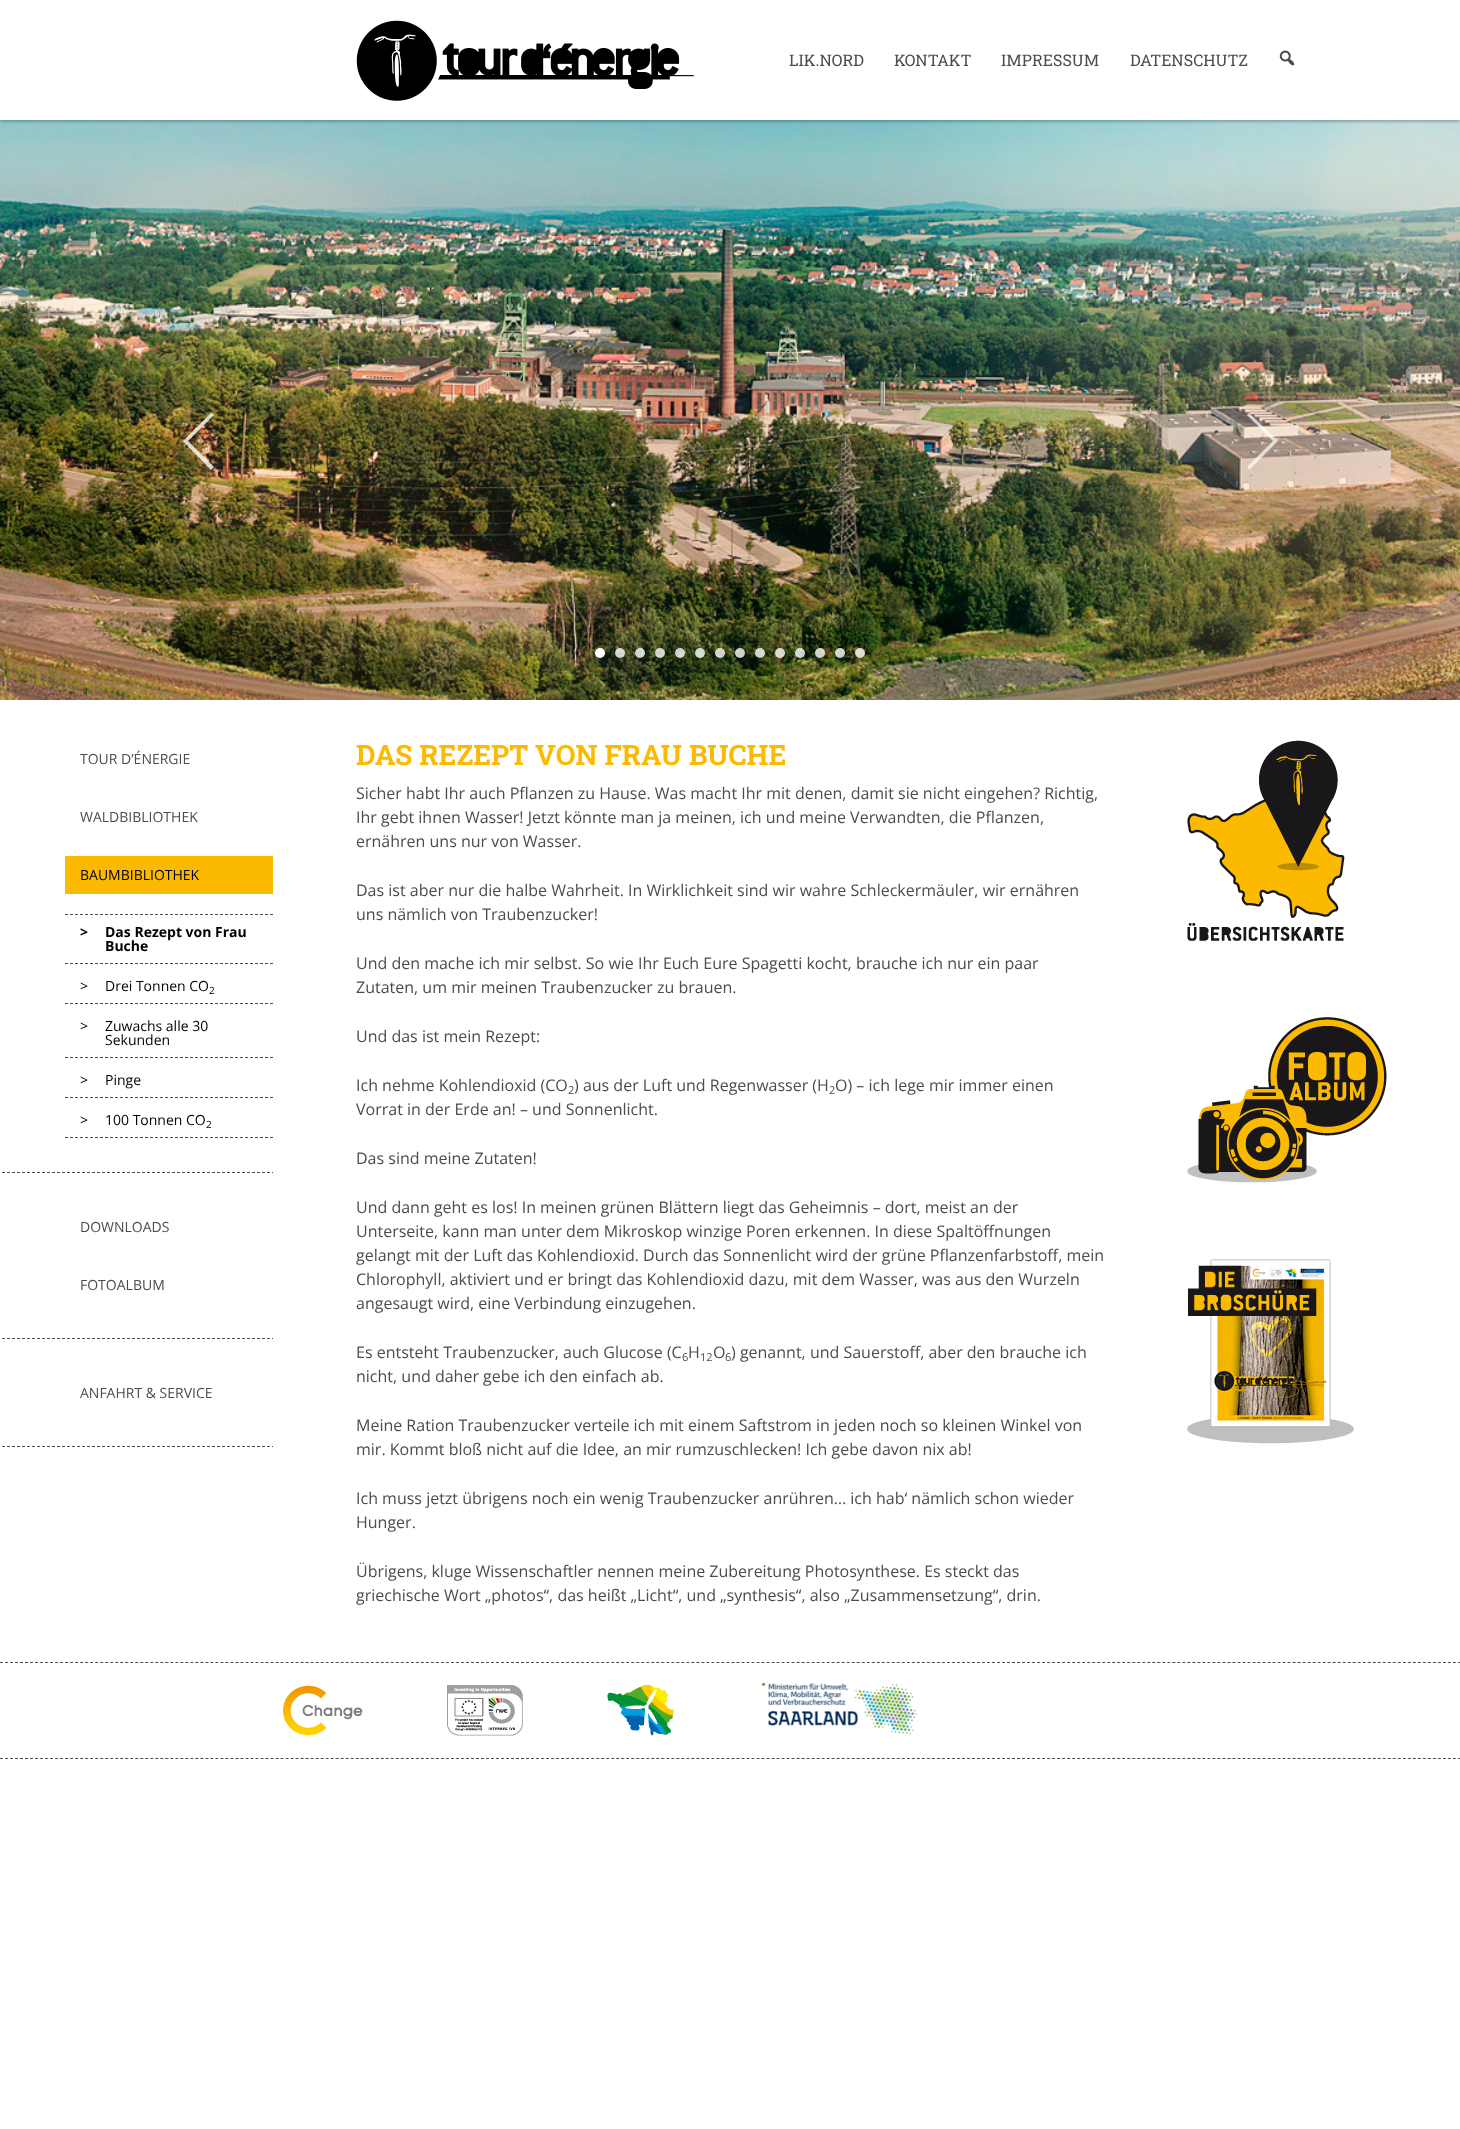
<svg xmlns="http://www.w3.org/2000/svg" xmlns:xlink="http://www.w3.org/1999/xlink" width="1460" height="2129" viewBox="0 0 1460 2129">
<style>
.cls-1{font:16px Roboto Slab;fill:#4c4c4c}
.cls-2{font:14px Open Sans;fill:#4c4c4c}
.cls-3{font:14px Open Sans;fill:#000000}
.cls-4{font:bold 14px Open Sans;fill:#000000}
.cls-5{font:10px Open Sans;fill:#000000}
.cls-6{font:bold 28px Roboto Slab;fill:#fbba00}
.cls-7{font:16px Open Sans;fill:#4c4c4c}
.cls-8{font:11px Open Sans;fill:#4c4c4c}
</style>
<defs>
<clipPath id="clip1"><rect x="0" y="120" width="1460" height="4"/></clipPath>
</defs>
<rect width="100%" height="100%" fill="#ffffff"/>
<image xlink:href="image2.png" x="0" y="120" width="1460" height="580"/>
<g clip-path="url(#clip1)">
<rect fill="#000000" fill-opacity="0.5" filter="blur(2.5px)" x="0" y="0" width="1460" height="120"/>
</g>
<image xlink:href="image0.png" x="356" y="20" width="338" height="81"/>
<image xlink:href="image1.png" x="1279" y="50" width="16" height="16"/>
<path fill="#ffffff" fill-opacity="0.8" d="M211 470L214 467L188 441L214 415L211 413L183 441Z"/>
<path fill="#ffffff" fill-opacity="0.7" d="M1249 470L1247 467L1273 441L1247 415L1249 413L1278 441Z"/>
<circle fill="#ffffff" cx="600" cy="653" r="5"/>
<circle fill="#ffffff" fill-opacity="0.8" cx="620" cy="653" r="5"/>
<circle fill="#ffffff" fill-opacity="0.8" cx="640" cy="653" r="5"/>
<circle fill="#ffffff" fill-opacity="0.8" cx="660" cy="653" r="5"/>
<circle fill="#ffffff" fill-opacity="0.8" cx="680" cy="653" r="5"/>
<circle fill="#ffffff" fill-opacity="0.8" cx="700" cy="653" r="5"/>
<circle fill="#ffffff" fill-opacity="0.8" cx="720" cy="653" r="5"/>
<circle fill="#ffffff" fill-opacity="0.8" cx="740" cy="653" r="5"/>
<circle fill="#ffffff" fill-opacity="0.8" cx="760" cy="653" r="5"/>
<circle fill="#ffffff" fill-opacity="0.8" cx="780" cy="653" r="5"/>
<circle fill="#ffffff" fill-opacity="0.8" cx="800" cy="653" r="5"/>
<circle fill="#ffffff" fill-opacity="0.8" cx="820" cy="653" r="5"/>
<circle fill="#ffffff" fill-opacity="0.8" cx="840" cy="653" r="5"/>
<circle fill="#ffffff" fill-opacity="0.8" cx="860" cy="653" r="5"/>
<rect fill="#fbba00" x="65" y="856" width="208" height="38"/>
<path fill="none" stroke="#4c4c4c" stroke-dasharray="3 2" d="M65 914.5H273"/>
<path fill="none" stroke="#4c4c4c" stroke-dasharray="3 2" d="M65 963.5H273"/>
<path fill="none" stroke="#4c4c4c" stroke-dasharray="3 2" d="M65 1003.5H273"/>
<path fill="none" stroke="#4c4c4c" stroke-dasharray="3 2" d="M65 1057.5H273"/>
<path fill="none" stroke="#4c4c4c" stroke-dasharray="3 2" d="M65 1097.5H273"/>
<path fill="none" stroke="#4c4c4c" stroke-dasharray="3 2" d="M65 1137.5H273"/>
<path fill="none" stroke="#4c4c4c" stroke-dasharray="3 2" d="M-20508 1172.5H273"/>
<path fill="none" stroke="#4c4c4c" stroke-dasharray="3 2" d="M-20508 1338.5H273"/>
<path fill="none" stroke="#4c4c4c" stroke-dasharray="3 2" d="M-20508 1446.5H273"/>
<image xlink:href="image3.png" x="1187" y="740" width="158" height="201"/>
<image xlink:href="image4.png" x="1187" y="1017" width="200" height="166"/>
<image xlink:href="image5.png" x="1187" y="1259" width="167" height="185"/>
<path fill="none" stroke="#4c4c4c" stroke-dasharray="3 2.01" d="M0 1662.5H1460"/>
<path fill="none" stroke="#4c4c4c" stroke-dasharray="3 2.01" d="M0 1758.5H1460"/>
<image xlink:href="image6.png" x="283" y="1685" width="80" height="51"/>
<image xlink:href="image7.png" x="447" y="1685" width="76" height="51"/>
<image xlink:href="image8.png" x="607" y="1685" width="67" height="51"/>
<image xlink:href="image9.png" x="761" y="1683" width="157" height="52"/>
<text class="cls-1" x="789" y="66">LIK.NORD</text>
<text class="cls-1" x="894" y="66">KONTAKT</text>
<text class="cls-1" x="1001" y="66">IMPRESSUM</text>
<text class="cls-1" x="1130" y="66">DATENSCHUTZ</text>
<text class="cls-2" x="80" y="764">TOUR D’ÉNERGIE</text>
<text class="cls-2" x="80" y="822">WALDBIBLIOTHEK</text>
<text class="cls-3" x="80" y="880">BAUMBIBLIOTHEK</text>
<text class="cls-4" x="80" y="937">&gt;</text>
<text class="cls-4"><tspan x="105" y="937">Das Rezept von Frau</tspan><tspan x="105" y="951">Buche</tspan></text>
<text class="cls-3" x="80" y="991">&gt;</text>
<text class="cls-3" x="105" y="991">Drei Tonnen CO</text>
<text class="cls-5" x="209" y="994">2</text>
<text class="cls-3" x="80" y="1031">&gt;</text>
<text class="cls-3"><tspan x="105" y="1031">Zuwachs alle 30</tspan><tspan x="105" y="1045">Sekunden</tspan></text>
<text class="cls-3" x="80" y="1085">&gt;</text>
<text class="cls-3" x="105" y="1085">Pinge</text>
<text class="cls-3" x="80" y="1125">&gt;</text>
<text class="cls-3" x="105" y="1125">100 Tonnen CO</text>
<text class="cls-5" x="206" y="1128">2</text>
<text class="cls-2" x="80" y="1232">DOWNLOADS</text>
<text class="cls-2" x="80" y="1290">FOTOALBUM</text>
<text class="cls-2" x="80" y="1398">ANFAHRT &amp; SERVICE</text>
<text class="cls-6" x="356" y="765">DAS REZEPT VON FRAU BUCHE</text>
<text class="cls-7"><tspan x="356" y="799">Sicher habt Ihr auch Pflanzen zu Hause. Was macht Ihr mit denen, damit sie nicht eingehen? Richtig,</tspan><tspan x="356" y="823">Ihr gebt ihnen Wasser! Jetzt könnte man ja meinen, ich und meine Verwandten, die Pflanzen,</tspan><tspan x="356" y="847">ernähren uns nur von Wasser.</tspan></text>
<text class="cls-7"><tspan x="356" y="896">Das ist aber nur die halbe Wahrheit. In Wirklichkeit sind wir wahre Schleckermäuler, wir ernähren</tspan><tspan x="356" y="920">uns nämlich von Traubenzucker!</tspan></text>
<text class="cls-7"><tspan x="356" y="969">Und den mache ich mir selbst. So wie Ihr Euch Eure Spagetti kocht, brauche ich nur ein paar</tspan><tspan x="356" y="993">Zutaten, um mir meinen Traubenzucker zu brauen.</tspan></text>
<text class="cls-7" x="356" y="1042">Und das ist mein Rezept:</text>
<text class="cls-7" x="356" y="1091">Ich nehme Kohlendioxid (CO</text>
<text class="cls-8" x="568" y="1094">2</text>
<text class="cls-7" x="574" y="1091">) aus der Luft und Regenwasser (H</text>
<text class="cls-8" x="829" y="1094">2</text>
<text class="cls-7" x="835" y="1091">O) – ich lege mir immer einen</text>
<text class="cls-7" x="356" y="1115">Vorrat in der Erde an! – und Sonnenlicht.</text>
<text class="cls-7" x="356" y="1164">Das sind meine Zutaten!</text>
<text class="cls-7"><tspan x="356" y="1213">Und dann geht es los! In meinen grünen Blättern liegt das Geheimnis – dort, meist an der</tspan><tspan x="356" y="1237">Unterseite, kann man unter dem Mikroskop winzige Poren erkennen. In diese Spaltöffnungen</tspan><tspan x="356" y="1261">gelangt mit der Luft das Kohlendioxid. Durch das Sonnenlicht wird der grüne Pflanzenfarbstoff, mein</tspan><tspan x="356" y="1285">Chlorophyll, aktiviert und er bringt das Kohlendioxid dazu, mit dem Wasser, was aus den Wurzeln</tspan><tspan x="356" y="1309">angesaugt wird, eine Verbindung einzugehen.</tspan></text>
<text class="cls-7" x="356" y="1358">Es entsteht Traubenzucker, auch Glucose (C</text>
<text class="cls-8" x="682" y="1361">6</text>
<text class="cls-7" x="688" y="1358">H</text>
<text class="cls-8" x="700" y="1361">12</text>
<text class="cls-7" x="713" y="1358">O</text>
<text class="cls-8" x="725" y="1361">6</text>
<text class="cls-7" x="731" y="1358">) genannt, und Sauerstoff, aber den brauche ich</text>
<text class="cls-7" x="356" y="1382">nicht, und daher gebe ich den einfach ab.</text>
<text class="cls-7"><tspan x="356" y="1431">Meine Ration Traubenzucker verteile ich mit einem Saftstrom in jeden noch so kleinen Winkel von</tspan><tspan x="356" y="1455">mir. Kommt bloß nicht auf die Idee, an mir rumzuschlecken! Ich gebe davon nix ab!</tspan></text>
<text class="cls-7"><tspan x="356" y="1504">Ich muss jetzt übrigens noch ein wenig Traubenzucker anrühren… ich hab‘ nämlich schon wieder</tspan><tspan x="356" y="1528">Hunger.</tspan></text>
<text class="cls-7"><tspan x="356" y="1577">Übrigens, kluge Wissenschaftler nennen meine Zubereitung Photosynthese. Es steckt das</tspan><tspan x="356" y="1601">griechische Wort „photos“, das heißt „Licht“, und „synthesis“, also „Zusammensetzung“, drin.</tspan></text>
</svg>
